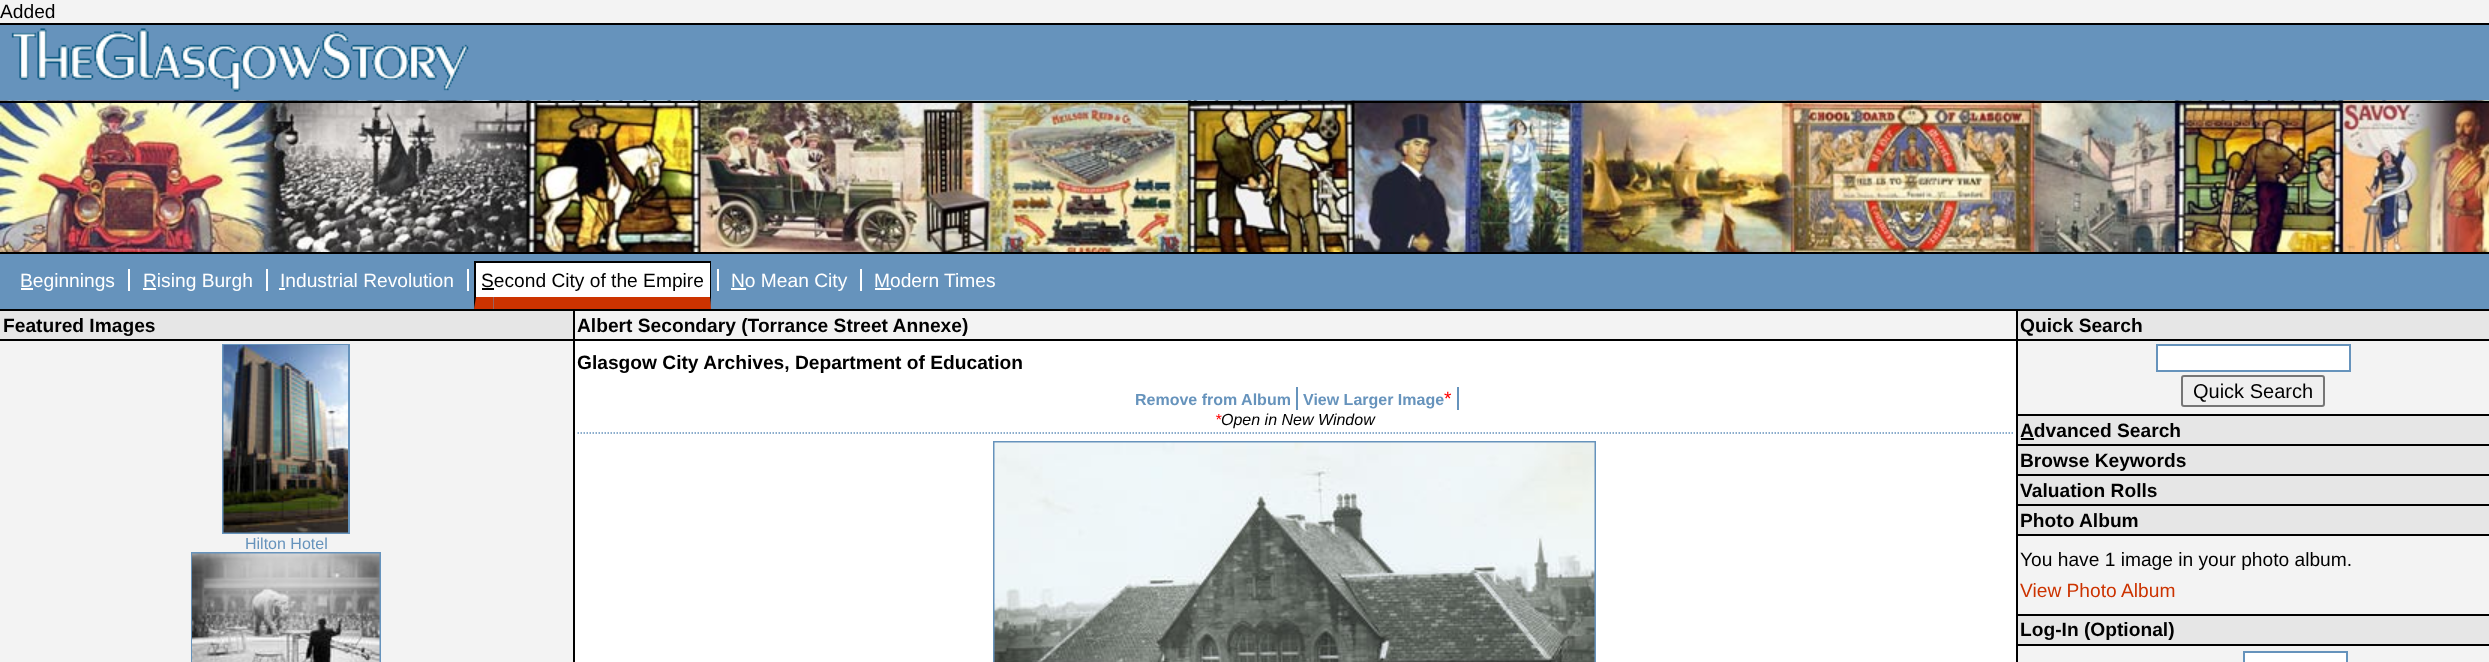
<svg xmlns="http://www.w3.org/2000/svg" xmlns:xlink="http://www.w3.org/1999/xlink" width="2489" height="662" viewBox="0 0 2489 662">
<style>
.cls-1{font:19.2px Liberation Sans;fill:#000000}
.cls-2{font:19.2px Liberation Sans;fill:#ffffff}
.cls-3{font:bold 19.2px Liberation Sans;fill:#000000}
.cls-4{font:16px Liberation Sans;fill:#6693bc}
.cls-5{font:bold 16px Liberation Sans;fill:#6693bc}
.cls-6{font:19.2px Liberation Sans;fill:#ff0000}
.cls-7{font:italic 16px Liberation Sans;fill:#ff0000}
.cls-8{font:italic 16px Liberation Sans;fill:#000000}
.cls-9{font:20px Liberation Sans;fill:#000000}
.cls-10{font:19.2px Liberation Sans;fill:#cc3300}
</style>
<rect width="100%" height="100%" fill="#f3f3f3"/>
<rect fill="#6693bc" x="0" y="25" width="2489" height="76"/>
<rect fill="#000000" x="0" y="23" width="2489" height="2"/>
<image xlink:href="image0.png" x="11" y="28" width="458" height="64"/>
<image xlink:href="image1.png" x="0" y="100" width="2489" height="152"/>
<rect fill="#000000" x="0" y="101" width="2489" height="2"/>
<rect fill="#000000" x="0" y="252" width="2489" height="2"/>
<rect fill="#6693bc" x="0" y="254" width="2489" height="55"/>
<rect fill="#000000" x="0" y="309" width="2489" height="2"/>
<rect fill="#ffffff" x="21" y="288" width="12" height="2"/>
<rect fill="#ffffff" x="128" y="269" width="2" height="22"/>
<rect fill="#ffffff" x="143" y="288" width="13" height="2"/>
<rect fill="#ffffff" x="266" y="269" width="2" height="22"/>
<rect fill="#ffffff" x="279" y="288" width="6" height="2"/>
<rect fill="#ffffff" x="467" y="269" width="2" height="22"/>
<rect fill="#ffffff" x="476" y="263" width="234" height="34"/>
<rect fill="#000000" x="474" y="261" width="237" height="2"/>
<path fill="#cc3300" d="M493.5 309H474L475.5 297H493.5Z"/>
<path fill="#000000" d="M474 309V261L476 262V297Z"/>
<path fill="#000000" d="M711 261V309L710 297V262Z"/>
<path fill="#cc3300" d="M711 309H494V297H710Z"/>
<rect fill="#000000" x="482" y="288" width="12" height="2"/>
<rect fill="#ffffff" x="717" y="269" width="2" height="22"/>
<rect fill="#ffffff" x="731" y="288" width="15" height="2"/>
<rect fill="#ffffff" x="860" y="269" width="2" height="22"/>
<rect fill="#ffffff" x="875" y="288" width="16" height="2"/>
<rect fill="#e6e6e6" x="0" y="311" width="573" height="28"/>
<rect fill="#000000" x="0" y="339" width="573" height="2"/>
<rect fill="none" stroke="#6693bc" stroke-width="2" x="223" y="345" width="126" height="188"/>
<image xlink:href="image2.png" x="223" y="345" width="125" height="188"/>
<rect fill="none" stroke="#6693bc" stroke-width="2" x="192" y="553" width="188" height="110"/>
<image xlink:href="image3.png" x="192" y="553" width="188" height="109"/>
<rect fill="#ffffff" x="575" y="341" width="1441" height="321"/>
<rect fill="#000000" x="2016" y="311" width="2" height="351"/>
<rect fill="#000000" x="573" y="311" width="2" height="351"/>
<rect fill="#000000" x="575" y="339" width="1441" height="2"/>
<path fill="none" stroke="#6693bc" stroke-width="1.5" stroke-dasharray="1.5 1.5" d="M577.5 433H2013"/>
<rect fill="#6693bc" x="1296" y="387" width="2" height="23"/>
<rect fill="#6693bc" x="1457" y="387" width="2" height="23"/>
<rect fill="none" stroke="#6693bc" stroke-width="2" x="994" y="442" width="601" height="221"/>
<image xlink:href="image4.png" x="994" y="442" width="601" height="220"/>
<rect fill="#e6e6e6" x="2018" y="311" width="471" height="28"/>
<rect fill="#000000" x="2018" y="339" width="471" height="2"/>
<rect fill="#ffffff" stroke="#6693bc" stroke-width="2" x="2157" y="345" width="193" height="26"/>
<rect fill="#efefef" stroke="#767676" stroke-width="2" x="2182" y="376" width="142" height="30" rx="2"/>
<rect fill="#e6e6e6" x="2018" y="416" width="471" height="28"/>
<rect fill="#000000" x="2018" y="414" width="471" height="2"/>
<rect fill="#000000" x="2021" y="438" width="13" height="2"/>
<rect fill="#e6e6e6" x="2018" y="446" width="471" height="28"/>
<rect fill="#000000" x="2018" y="444" width="471" height="2"/>
<rect fill="#e6e6e6" x="2018" y="476" width="471" height="28"/>
<rect fill="#000000" x="2018" y="474" width="471" height="2"/>
<rect fill="#e6e6e6" x="2018" y="506" width="471" height="28"/>
<rect fill="#000000" x="2018" y="504" width="471" height="2"/>
<rect fill="#000000" x="2018" y="534" width="471" height="2"/>
<rect fill="#e6e6e6" x="2018" y="616" width="471" height="28"/>
<rect fill="#000000" x="2018" y="614" width="471" height="2"/>
<rect fill="#000000" x="2018" y="644" width="471" height="2"/>
<rect fill="#ffffff" stroke="#6693bc" stroke-width="2" x="2244" y="652" width="103" height="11"/>
<text class="cls-1" x="0" y="18">Added</text>
<text class="cls-2" x="20" y="287">Beginnings</text>
<text class="cls-2" x="143" y="287">Rising Burgh</text>
<text class="cls-2" x="280" y="287">Industrial Revolution</text>
<text class="cls-1" x="481" y="287">Second City of the Empire</text>
<text class="cls-2" x="731" y="287">No Mean City</text>
<text class="cls-2" x="874" y="287">Modern Times</text>
<text class="cls-3" x="3" y="332">Featured Images</text>
<text class="cls-4" x="245" y="549">Hilton Hotel</text>
<text class="cls-3"><tspan x="577" y="332">Albert Secondary (Torrance Street Annexe)</tspan><tspan x="577" y="369">Glasgow City Archives, Department of Education</tspan></text>
<text class="cls-5" x="1135" y="405">Remove from Album</text>
<text class="cls-5" x="1303" y="405">View Larger Image</text>
<text class="cls-6" x="1444" y="405">*</text>
<text class="cls-7" x="1215" y="425">*</text>
<text class="cls-8" x="1221" y="425">Open in New Window</text>
<text class="cls-3" x="2020" y="332">Quick Search</text>
<text class="cls-9" x="2193" y="398">Quick Search</text>
<text class="cls-3"><tspan x="2020" y="437">Advanced Search</tspan><tspan x="2020" y="467">Browse Keywords</tspan><tspan x="2020" y="497">Valuation Rolls</tspan><tspan x="2020" y="527">Photo Album</tspan></text>
<text class="cls-1" x="2020" y="566">You have 1 image in your photo album.</text>
<text class="cls-10" x="2020" y="597">View Photo Album</text>
<text class="cls-3" x="2020" y="636">Log-In (Optional)</text>
</svg>
